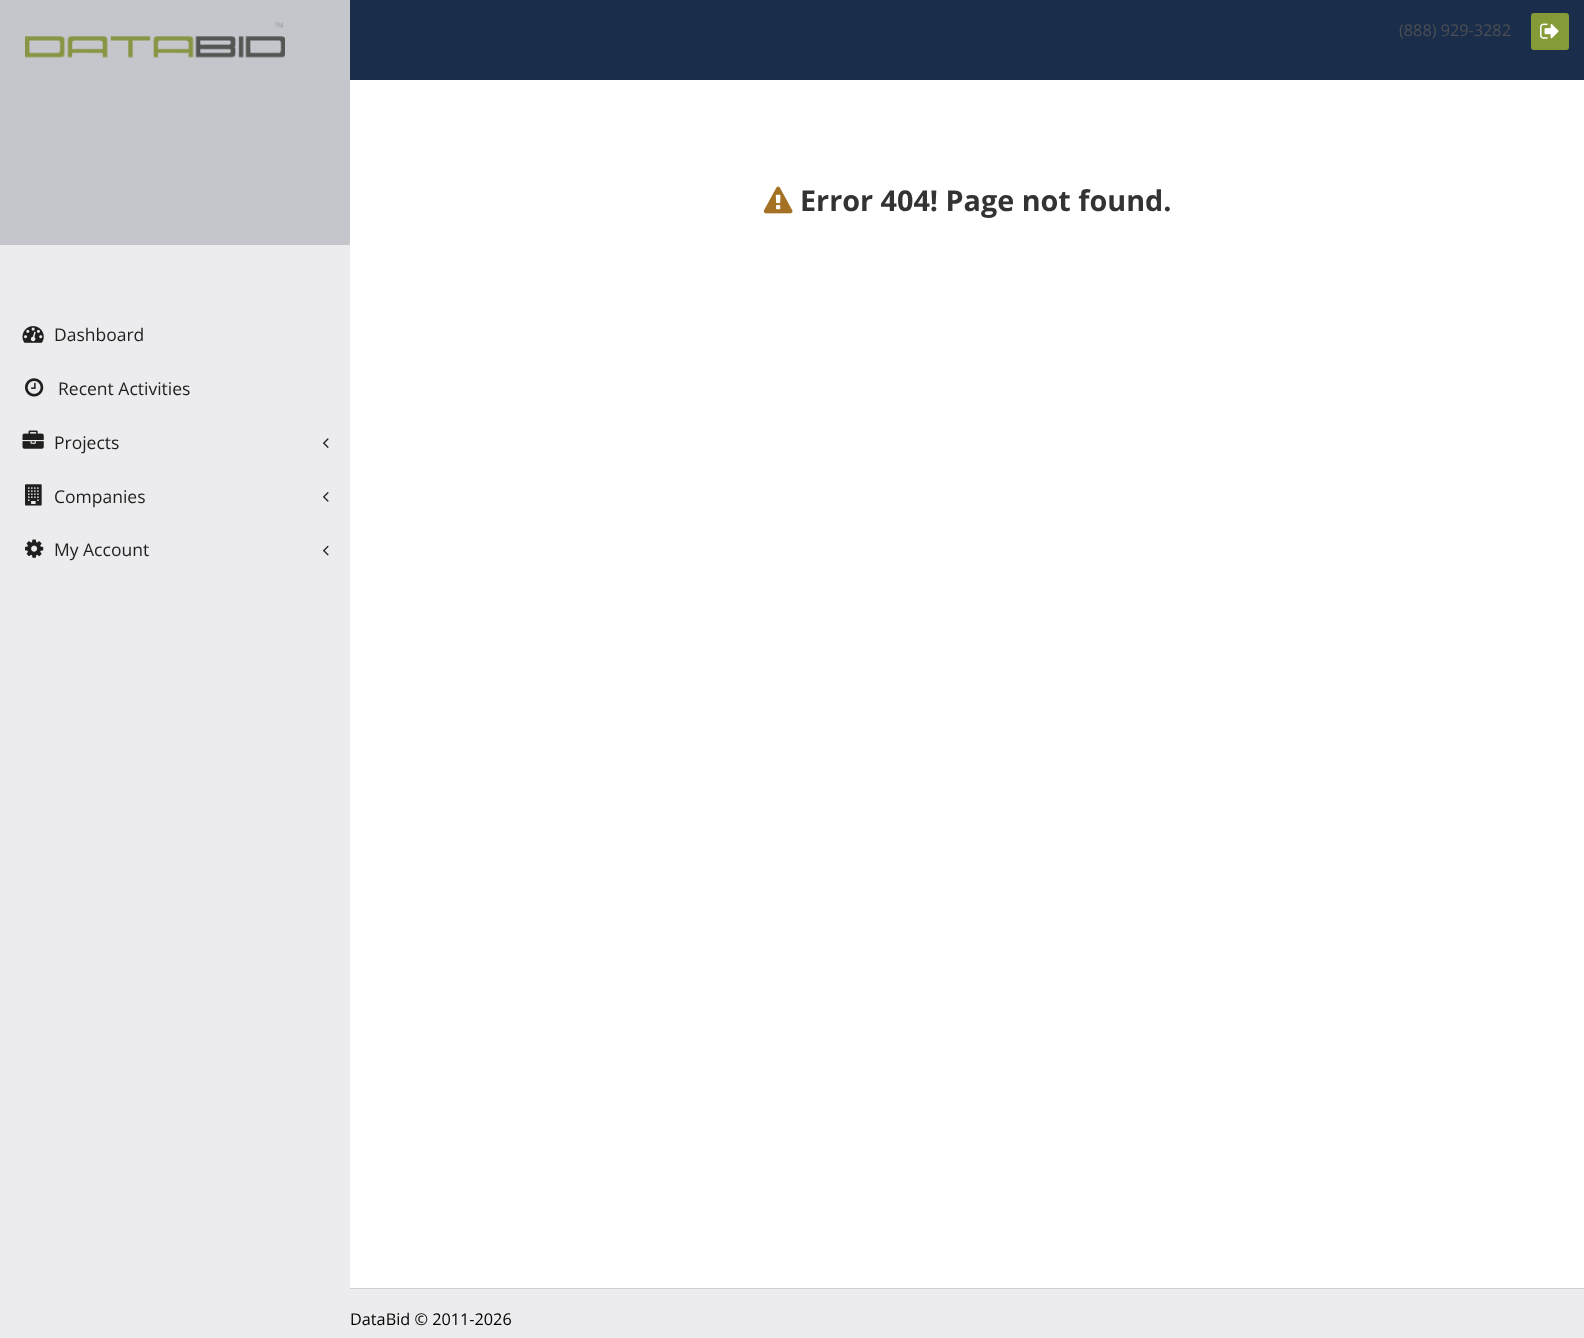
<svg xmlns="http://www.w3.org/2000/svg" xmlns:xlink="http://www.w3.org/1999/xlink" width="1584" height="1338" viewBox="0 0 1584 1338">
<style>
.cls-1{font:16.25px Open Sans;fill:#4c4f53}
.cls-2{font:bold 28.75px Open Sans;fill:#333333}
.cls-3{font:17.5px Open Sans;fill:#1f1f1f}
.cls-4{font:16.25px Open Sans;fill:#000000}
</style>
<rect width="100%" height="100%" fill="#ffffff"/>
<rect fill="#1a2d4a" x="350" y="0" width="1234" height="80"/>
<rect fill="#c5c6cb" x="0" y="0" width="350" height="245"/>
<image xlink:href="image0.png" x="25" y="22" width="260" height="36"/>
<rect fill="#859b37" stroke="#859b37" x="1531.5" y="13.5" width="37" height="36" rx="2"/>
<image xlink:href="image1.png" x="1540" y="23" width="19" height="16"/>
<image xlink:href="image2.png" x="763" y="186" width="30" height="28"/>
<rect fill="#ececee" x="0" y="245" width="350" height="1093"/>
<image xlink:href="image3.png" x="22" y="326" width="22" height="17"/>
<image xlink:href="image4.png" x="25" y="378" width="19" height="19"/>
<image xlink:href="image5.png" x="22" y="430" width="22" height="19"/>
<image xlink:href="image6.png" x="323" y="438" width="6" height="10"/>
<image xlink:href="image7.png" x="25" y="484" width="17" height="22"/>
<image xlink:href="image8.png" x="323" y="492" width="6" height="10"/>
<image xlink:href="image9.png" x="25" y="539" width="19" height="19"/>
<image xlink:href="image10.png" x="323" y="545" width="6" height="11"/>
<rect fill="#ececee" x="350" y="1289" width="1234" height="49"/>
<rect fill="#cecece" x="350" y="1288" width="1234" height="1"/>
<text class="cls-1" x="1399" y="36">(888) 929-3282</text>
<text class="cls-2" x="800" y="211">Error 404! Page not found.</text>
<text class="cls-3" x="54" y="341">Dashboard</text>
<text class="cls-3" x="58" y="395">Recent Activities</text>
<text class="cls-3" x="54" y="449">Projects</text>
<text class="cls-3" x="54" y="503">Companies</text>
<text class="cls-3" x="54" y="556">My Account</text>
<text class="cls-4" x="350" y="1325">DataBid © 2011-2026</text>
</svg>
